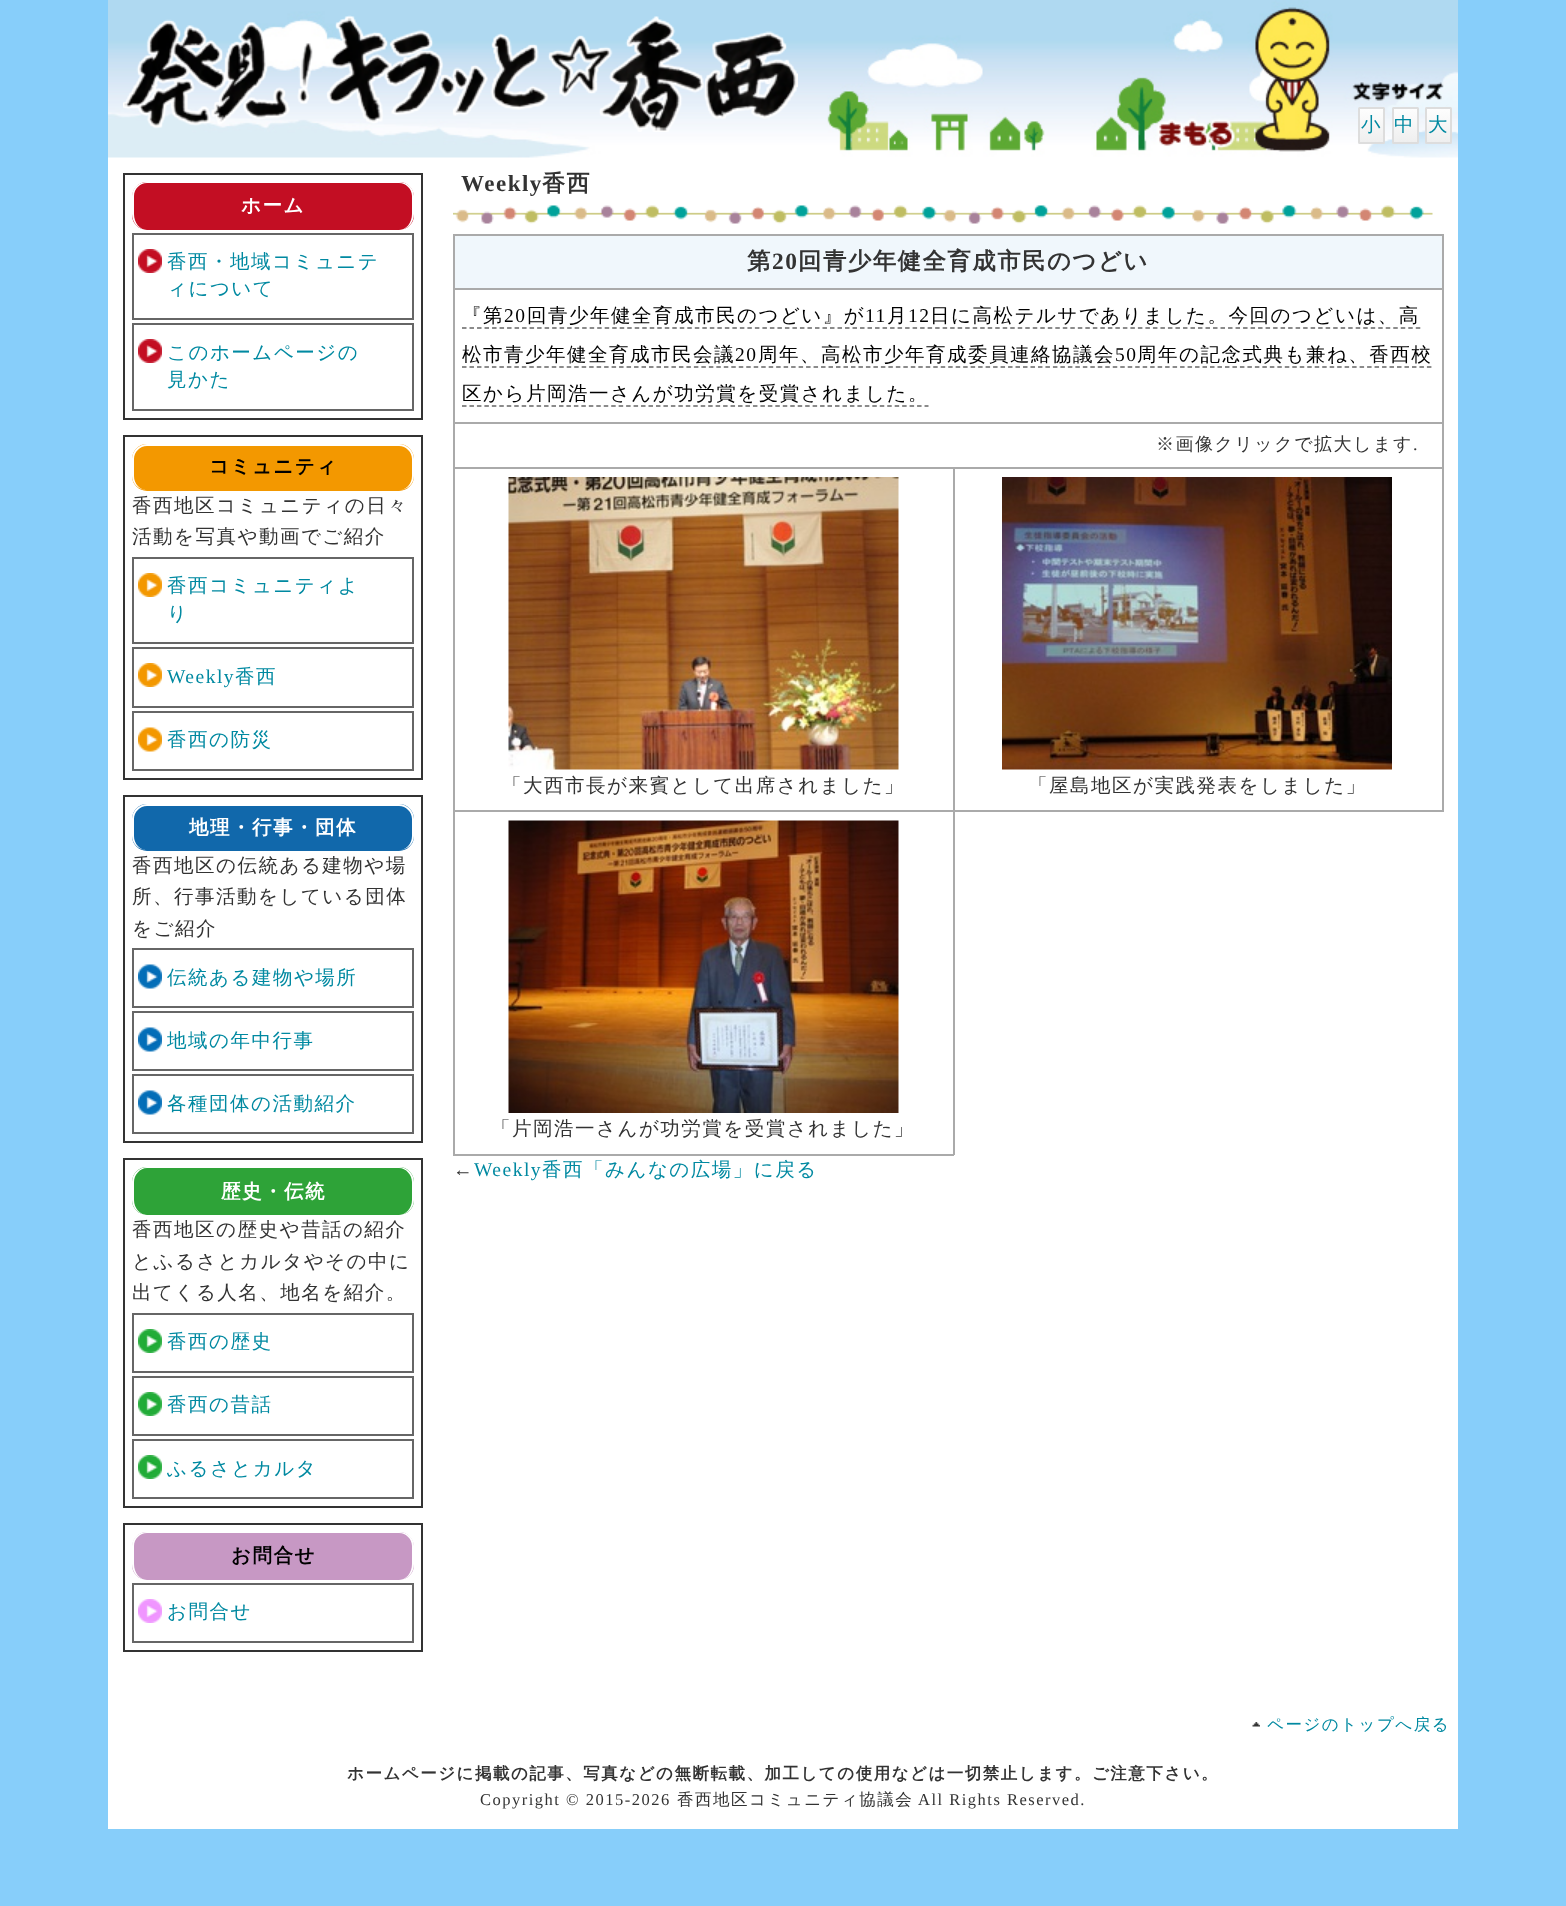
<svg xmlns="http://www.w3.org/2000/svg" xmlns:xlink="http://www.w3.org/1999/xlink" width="1566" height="1906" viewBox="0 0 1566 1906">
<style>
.cls-1{font:500 19.5px WenQuanYi Zen Hei;letter-spacing:1.5px;fill:#0089a1}
.cls-2{font:bold 19.5px WenQuanYi Zen Hei;letter-spacing:1.5px;fill:#ffffff}
.cls-3{font:bold 19.5px WenQuanYi Zen Hei;letter-spacing:1.5px;fill:#000000}
.cls-4{font:500 19.5px WenQuanYi Zen Hei;letter-spacing:1.5px;fill:#333333}
.cls-5{font:19.5px Liberation Serif;letter-spacing:1.5px;fill:#0089a1}
.cls-6{font:bold 23px Liberation Serif;letter-spacing:1.5px;fill:#333333}
.cls-7{font:bold 23px WenQuanYi Zen Hei;letter-spacing:1.5px;fill:#333333}
.cls-8{font:bold 23.4px WenQuanYi Zen Hei;letter-spacing:1.5px;fill:#333333}
.cls-9{font:bold 23.4px Liberation Serif;letter-spacing:1.5px;fill:#333333}
.cls-10{font:500 19.5px WenQuanYi Zen Hei;letter-spacing:1.5px;fill:#000000}
.cls-11{font:19.5px Liberation Serif;letter-spacing:1.5px;fill:#000000}
.cls-12{font:500 18px WenQuanYi Zen Hei;letter-spacing:1.5px;fill:#333333}
.cls-13{font:18px Liberation Serif;letter-spacing:1.5px;fill:#333333}
.cls-14{font:19.5px Liberation Serif;letter-spacing:1.5px;fill:#333333}
.cls-15{font:500 16.5px WenQuanYi Zen Hei;letter-spacing:1.5px;fill:#0089a1}
.cls-16{font:bold 16.5px WenQuanYi Zen Hei;letter-spacing:1.5px;fill:#333333}
.cls-17{font:16.5px Liberation Serif;letter-spacing:1.5px;fill:#333333}
.cls-18{font:500 16.5px WenQuanYi Zen Hei;letter-spacing:1.5px;fill:#333333}
</style>
<defs>
<linearGradient id="g1" gradientUnits="userSpaceOnUse" x1="1371" y1="108" x2="1371" y2="143"><stop offset="0" stop-color="#fefefe"/><stop offset="1" stop-color="#eeeeee"/></linearGradient>
<linearGradient id="g2" gradientUnits="userSpaceOnUse" x1="1406" y1="108" x2="1406" y2="143"><stop offset="0" stop-color="#fefefe"/><stop offset="1" stop-color="#eeeeee"/></linearGradient>
<linearGradient id="g3" gradientUnits="userSpaceOnUse" x1="1439" y1="108" x2="1439" y2="143"><stop offset="0" stop-color="#fefefe"/><stop offset="1" stop-color="#eeeeee"/></linearGradient>
</defs>
<rect width="100%" height="100%" fill="#87cefa"/>
<rect fill="#ffffff" x="108" y="157" width="1350" height="1672"/>
<image xlink:href="image0.png" x="108" y="0" width="1350" height="158"/>
<image xlink:href="image1.png" x="123" y="15" width="675" height="117"/>
<rect fill="url(#g1)" x="1358" y="108" width="27" height="35"/>
<rect fill="none" stroke="#dddddd" stroke-width="2" x="1359" y="108" width="25" height="35" rx="0.5"/>
<rect fill="url(#g2)" x="1392" y="108" width="27" height="35"/>
<rect fill="none" stroke="#dddddd" stroke-width="2" x="1393" y="108" width="25" height="35" rx="0.5"/>
<rect fill="url(#g3)" x="1425" y="108" width="27" height="35"/>
<rect fill="none" stroke="#dddddd" stroke-width="2" x="1426" y="108" width="25" height="35" rx="0.5"/>
<rect fill="none" stroke="#333333" stroke-width="2" x="124" y="174" width="298" height="245"/>
<rect fill="#c30e23" x="132" y="182" width="282" height="48" rx="15"/>
<path fill="#ffffff" fill-rule="evenodd" d="M147 182H399C407 182 414 188 414 196V214C414 223 407 230 399 230H147C139 230 132 223 132 214V196C132 188 139 182 147 182ZM147 183H399C406 183 412 189 412 196V214C412 223 406 230 399 230H147C140 230 134 223 134 214V196C134 189 140 183 147 183Z"/>
<image xlink:href="image2.png" x="138" y="249" width="24" height="24"/>
<rect fill="none" stroke="#666666" stroke-width="2" x="133" y="234" width="280" height="85"/>
<image xlink:href="image2.png" x="138" y="339" width="24" height="24"/>
<rect fill="none" stroke="#666666" stroke-width="2" x="133" y="324" width="280" height="86"/>
<rect fill="none" stroke="#333333" stroke-width="2" x="124" y="436" width="298" height="343"/>
<rect fill="#f39800" x="132" y="444" width="282" height="47" rx="15"/>
<path fill="#ffffff" fill-rule="evenodd" d="M147 444H399C407 444 414 451 414 459V476C414 484 407 490 399 490H147C139 490 132 484 132 476V459C132 451 139 444 147 444ZM147 446H399C406 446 412 452 412 459V476C412 484 406 490 399 490H147C140 490 134 484 134 476V459C134 452 140 446 147 446Z"/>
<image xlink:href="image3.png" x="138" y="573" width="24" height="24"/>
<rect fill="none" stroke="#666666" stroke-width="2" x="133" y="558" width="280" height="85"/>
<image xlink:href="image3.png" x="138" y="663" width="24" height="24"/>
<rect fill="none" stroke="#666666" stroke-width="2" x="133" y="648" width="280" height="59"/>
<image xlink:href="image4.png" x="138" y="727" width="24" height="25"/>
<rect fill="none" stroke="#666666" stroke-width="2" x="133" y="712" width="280" height="58"/>
<rect fill="none" stroke="#333333" stroke-width="2" x="124" y="796" width="298" height="346"/>
<rect fill="#1168ab" x="132" y="804" width="282" height="47" rx="15"/>
<path fill="#ffffff" fill-rule="evenodd" d="M147 804H399C407 804 414 811 414 819V836C414 844 407 850 399 850H147C139 850 132 844 132 836V819C132 811 139 804 147 804ZM147 806H399C406 806 412 812 412 819V836C412 844 406 850 399 850H147C140 850 134 844 134 836V819C134 812 140 806 147 806Z"/>
<image xlink:href="image5.png" x="138" y="964" width="24" height="25"/>
<rect fill="none" stroke="#666666" stroke-width="2" x="133" y="949" width="280" height="58"/>
<image xlink:href="image5.png" x="138" y="1027" width="24" height="25"/>
<rect fill="none" stroke="#666666" stroke-width="2" x="133" y="1012" width="280" height="58"/>
<image xlink:href="image5.png" x="138" y="1090" width="24" height="25"/>
<rect fill="none" stroke="#666666" stroke-width="2" x="133" y="1075" width="280" height="58"/>
<rect fill="none" stroke="#333333" stroke-width="2" x="124" y="1159" width="298" height="348"/>
<rect fill="#2ea338" x="132" y="1167" width="282" height="48" rx="15"/>
<path fill="#ffffff" fill-rule="evenodd" d="M147 1167H399C407 1167 414 1174 414 1182V1200C414 1208 407 1215 399 1215H147C139 1215 132 1208 132 1200V1182C132 1174 139 1167 147 1167ZM147 1168H399C406 1168 412 1175 412 1182V1200C412 1208 406 1215 399 1215H147C140 1215 134 1208 134 1200V1182C134 1175 140 1168 147 1168Z"/>
<image xlink:href="image6.png" x="138" y="1329" width="24" height="24"/>
<rect fill="none" stroke="#666666" stroke-width="2" x="133" y="1314" width="280" height="58"/>
<image xlink:href="image6.png" x="138" y="1392" width="24" height="24"/>
<rect fill="none" stroke="#666666" stroke-width="2" x="133" y="1377" width="280" height="58"/>
<image xlink:href="image6.png" x="138" y="1455" width="24" height="24"/>
<rect fill="none" stroke="#666666" stroke-width="2" x="133" y="1440" width="280" height="58"/>
<rect fill="none" stroke="#333333" stroke-width="2" x="124" y="1524" width="298" height="127"/>
<rect fill="#c798c4" x="132" y="1532" width="282" height="48" rx="15"/>
<path fill="#ffffff" fill-rule="evenodd" d="M147 1532H399C407 1532 414 1538 414 1546V1564C414 1573 407 1580 399 1580H147C139 1580 132 1573 132 1564V1546C132 1538 139 1532 147 1532ZM147 1533H399C406 1533 412 1539 412 1546V1564C412 1573 406 1580 399 1580H147C140 1580 134 1573 134 1564V1546C134 1539 140 1533 147 1533Z"/>
<image xlink:href="image7.png" x="138" y="1599" width="24" height="24"/>
<rect fill="none" stroke="#666666" stroke-width="2" x="133" y="1584" width="280" height="58"/>
<image xlink:href="image8.png" x="453" y="205" width="980" height="19"/>
<rect fill="#f0f7fc" x="455" y="236" width="987" height="52"/>
<rect fill="#aaaaaa" x="453" y="234" width="990" height="2"/>
<rect fill="#aaaaaa" x="453" y="288" width="990" height="2"/>
<rect fill="#aaaaaa" x="453" y="422" width="990" height="2"/>
<rect fill="#aaaaaa" x="953" y="467" width="490" height="2"/>
<rect fill="#aaaaaa" x="1442" y="467" width="2" height="345"/>
<rect fill="#aaaaaa" x="1442" y="422" width="2" height="46"/>
<rect fill="#aaaaaa" x="1442" y="288" width="2" height="135"/>
<rect fill="#aaaaaa" x="1442" y="234" width="2" height="56"/>
<rect fill="#aaaaaa" x="453" y="810" width="501" height="2"/>
<rect fill="#aaaaaa" x="953" y="810" width="2" height="345"/>
<rect fill="#aaaaaa" x="953" y="810" width="490" height="2"/>
<rect fill="#aaaaaa" x="953" y="467" width="2" height="345"/>
<rect fill="#aaaaaa" x="453" y="467" width="501" height="2"/>
<rect fill="#aaaaaa" x="453" y="1154" width="501" height="2"/>
<rect fill="#aaaaaa" x="453" y="810" width="2" height="345"/>
<rect fill="#aaaaaa" x="453" y="467" width="2" height="345"/>
<rect fill="#aaaaaa" x="453" y="422" width="2" height="46"/>
<rect fill="#aaaaaa" x="453" y="288" width="2" height="135"/>
<rect fill="#aaaaaa" x="453" y="234" width="2" height="56"/>
<path fill="none" stroke="#666666" stroke-width="1.5" stroke-dasharray="4.5 3.01" d="M462 328H1420.5"/>
<path fill="none" stroke="#666666" stroke-width="1.5" stroke-dasharray="4.5 2.98" d="M462 367H1432.5"/>
<path fill="none" stroke="#666666" stroke-width="1.5" stroke-dasharray="4.5 2.96" d="M462 406H928.5"/>
<image xlink:href="image9.png" x="508" y="477" width="391" height="293"/>
<image xlink:href="image10.png" x="1002" y="477" width="390" height="293"/>
<image xlink:href="image11.png" x="508" y="820" width="391" height="293"/>
<image xlink:href="image12.png" x="1252" y="1722" width="8" height="5"/>
<text class="cls-1" x="1361" y="131">小</text>
<text class="cls-1" x="1394" y="131">中</text>
<text class="cls-1" x="1428" y="131">大</text>
<text class="cls-2" x="241" y="212">ホーム</text>
<text class="cls-1"><tspan x="167" y="268">香西・地域コミュニテ</tspan><tspan x="167" y="295">ィについて</tspan></text>
<text class="cls-1"><tspan x="167" y="359">このホームページの</tspan><tspan x="167" y="386">見かた</tspan></text>
<text class="cls-3" x="209" y="473">コミュニティ</text>
<text class="cls-4"><tspan x="132" y="512">香西地区コミュニティの日々</tspan><tspan x="132" y="543">活動を写真や動画でご紹介</tspan></text>
<text class="cls-1"><tspan x="167" y="592">香西コミュニティよ</tspan><tspan x="167" y="620">り</tspan></text>
<text class="cls-5" x="167" y="683">Weekly</text>
<text class="cls-1" x="235" y="683">香西</text>
<text class="cls-1" x="167" y="746">香西の防災</text>
<text class="cls-2" x="189" y="834">地理・行事・団体</text>
<text class="cls-4"><tspan x="132" y="872">香西地区の伝統ある建物や場</tspan><tspan x="132" y="903">所、行事活動をしている団体</tspan><tspan x="132" y="935">をご紹介</tspan></text>
<text class="cls-1" x="167" y="984">伝統ある建物や場所</text>
<text class="cls-1" x="167" y="1047">地域の年中行事</text>
<text class="cls-1" x="167" y="1110">各種団体の活動紹介</text>
<text class="cls-2" x="221" y="1198">歴史・伝統</text>
<text class="cls-4"><tspan x="132" y="1236">香西地区の歴史や昔話の紹介</tspan><tspan x="132" y="1268">とふるさとカルタやその中に</tspan><tspan x="132" y="1299">出てくる人名、地名を紹介。</tspan></text>
<text class="cls-1" x="167" y="1348">香西の歴史</text>
<text class="cls-1" x="167" y="1411">香西の昔話</text>
<text class="cls-1" x="167" y="1475">ふるさとカルタ</text>
<text class="cls-3" x="231" y="1562">お問合せ</text>
<text class="cls-1" x="167" y="1618">お問合せ</text>
<text class="cls-6" x="461" y="191">Weekly</text>
<text class="cls-7" x="542" y="191">香西</text>
<text class="cls-8" x="747" y="269">第</text>
<text class="cls-9" x="772" y="269">20</text>
<text class="cls-8" x="798" y="269">回青少年健全育成市民のつどい</text>
<text class="cls-10" x="462" y="322">『第</text>
<text class="cls-11" x="504" y="322">20</text>
<text class="cls-10" x="527" y="322">回青少年健全育成市民のつどい』が</text>
<text class="cls-11" x="865" y="322">11</text>
<text class="cls-10" x="887" y="322">月</text>
<text class="cls-11" x="908" y="322">12</text>
<text class="cls-10" x="930" y="322">日に高松テルサでありました。今回のつどいは、高</text>
<text class="cls-10" x="462" y="361">松市青少年健全育成市民会議</text>
<text class="cls-11" x="735" y="361">20</text>
<text class="cls-10" x="758" y="361">周年、高松市少年育成委員連絡協議会</text>
<text class="cls-11" x="1115" y="361">50</text>
<text class="cls-10" x="1137" y="361">周年の記念式典も兼ね、香西校</text>
<text class="cls-10" x="462" y="400">区から片岡浩一さんが功労賞を受賞されました。</text>
<text class="cls-12" x="1156" y="450">※画像クリックで拡大します</text>
<text class="cls-13" x="1413" y="450">.</text>
<text class="cls-4" x="502" y="792">「大西市長が来賓として出席されました」</text>
<text class="cls-4" x="1028" y="792">「屋島地区が実践発表をしました」</text>
<text class="cls-4" x="491" y="1135">「片岡浩一さんが功労賞を受賞されました」</text>
<text class="cls-14" x="453" y="1176">←</text>
<text class="cls-5" x="474" y="1176">Weekly</text>
<text class="cls-1" x="542" y="1176">香西「みんなの広場」に戻る</text>
<text class="cls-15" x="1267" y="1730">ページのトップへ戻る</text>
<text class="cls-16" x="347" y="1779">ホームページに掲載の記事、写真などの無断転載、加工しての使用などは一切禁止します。ご注意下さい。</text>
<text class="cls-17" x="480" y="1805">Copyright © 2015-2026</text>
<text class="cls-18" x="677" y="1805">香西地区コミュニティ協議会</text>
<text class="cls-17" x="918" y="1805">All Rights Reserved.</text>
</svg>
